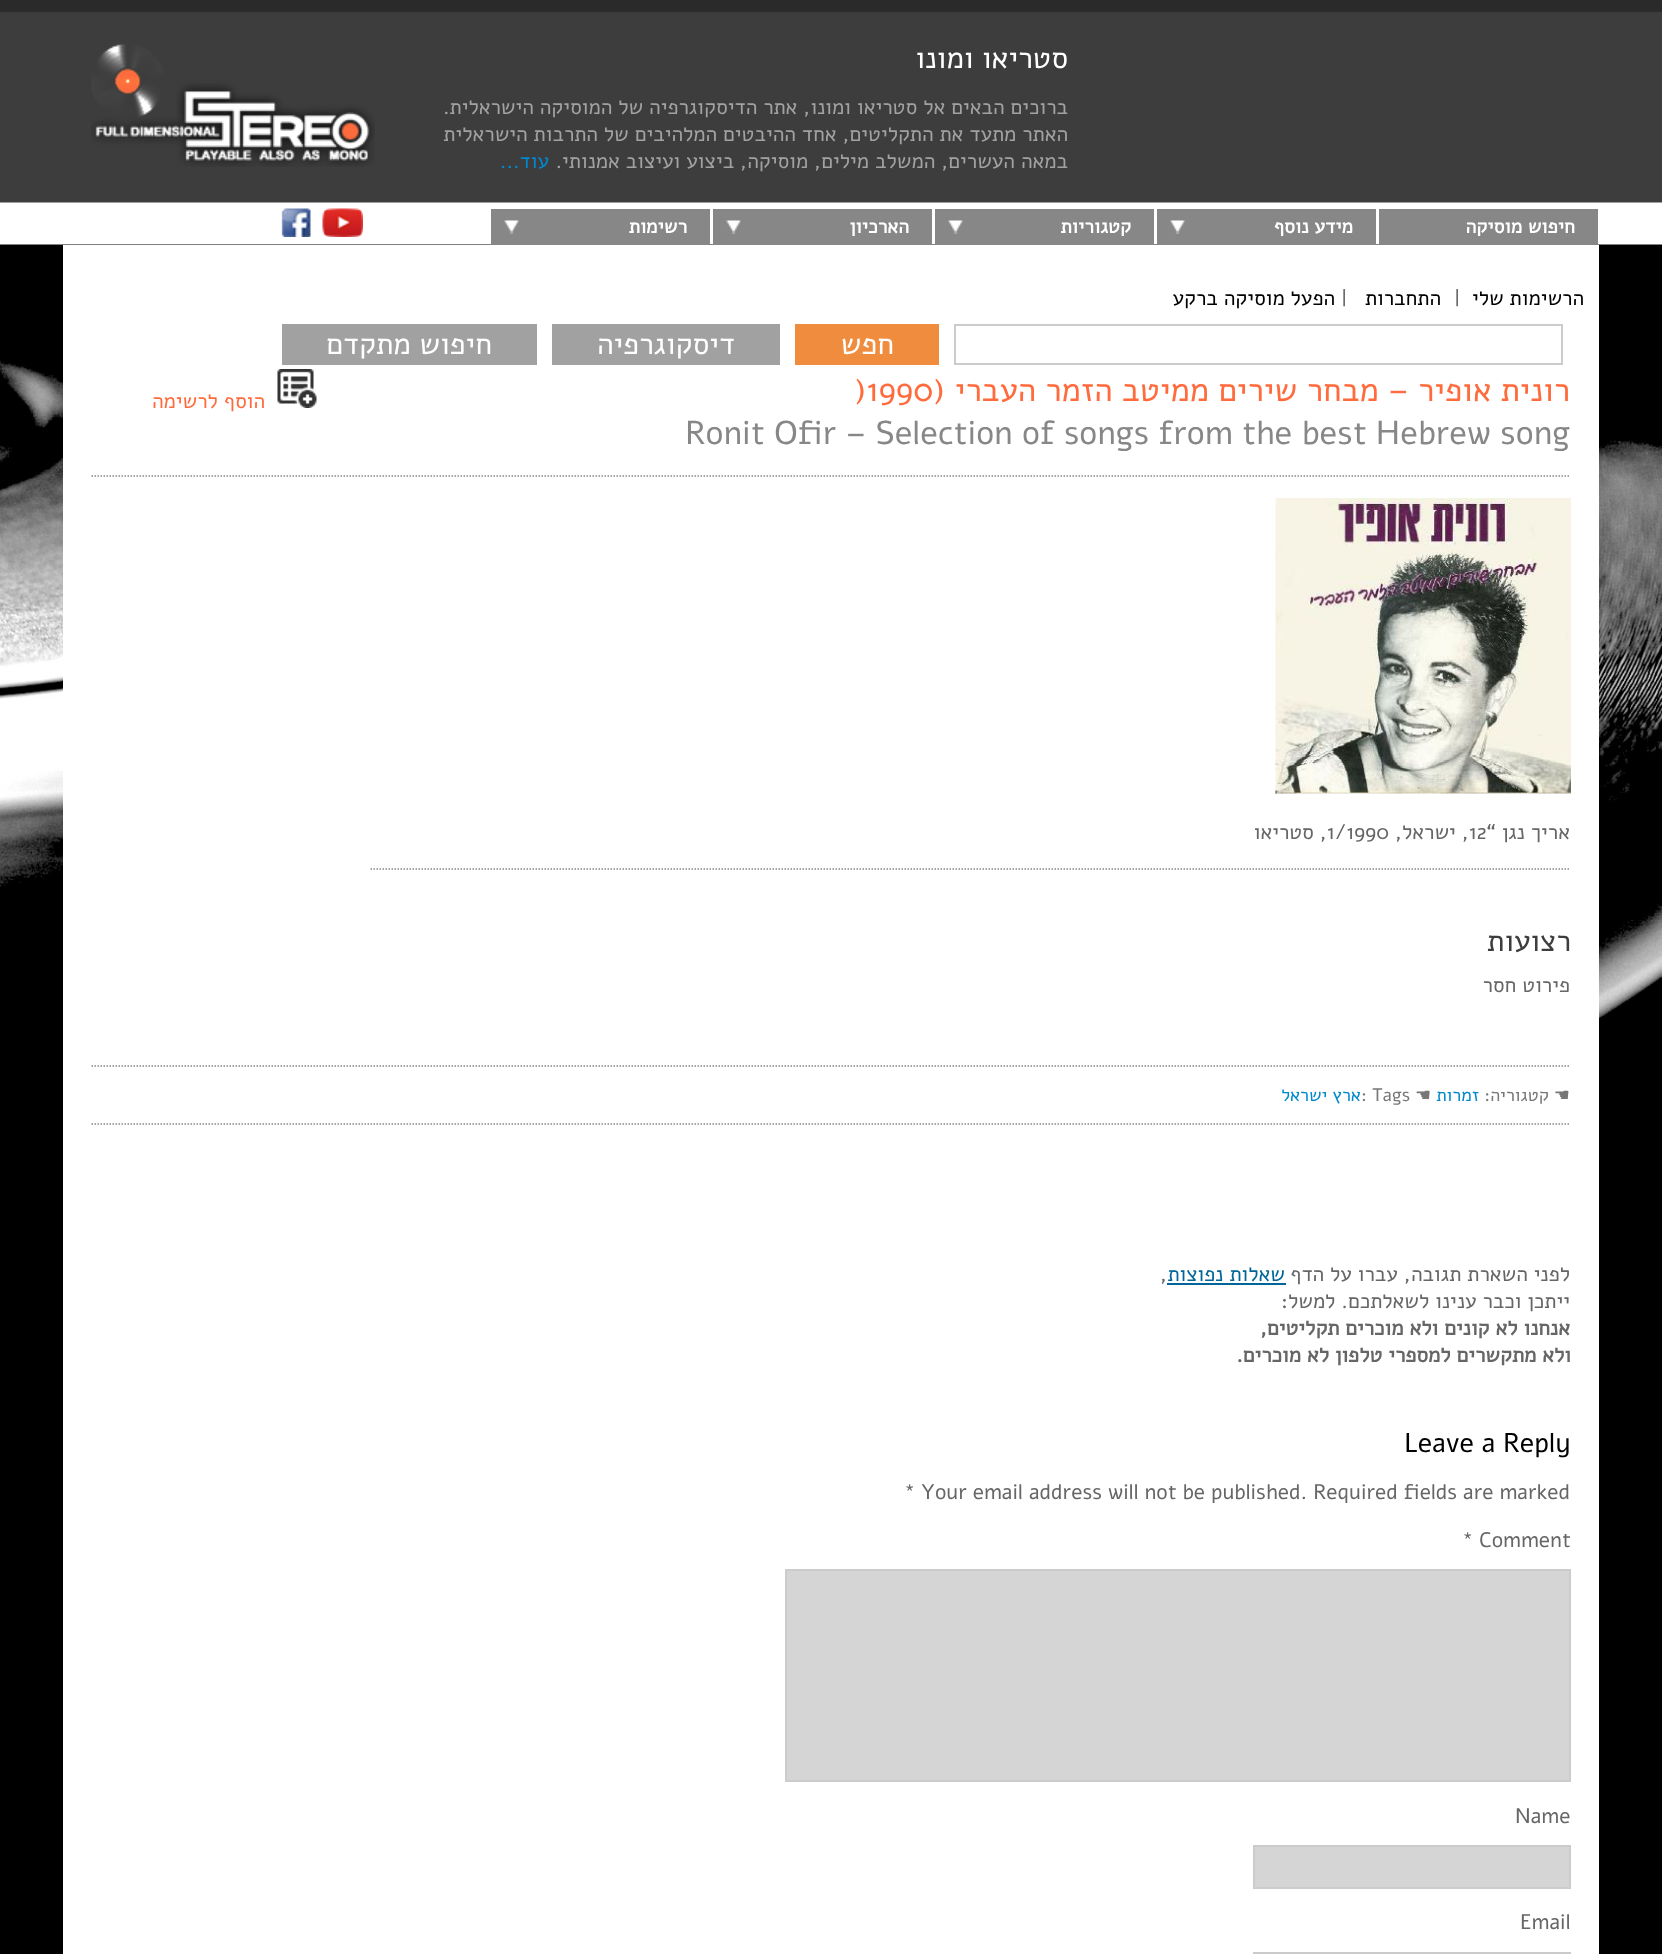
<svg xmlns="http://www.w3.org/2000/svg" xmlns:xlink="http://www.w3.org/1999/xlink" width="1662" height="1954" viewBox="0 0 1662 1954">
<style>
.cls-1{font:30px Alef;direction:rtl;fill:#ffffff}
.cls-2{font:21px Alef;direction:rtl;fill:#a2a2a2}
.cls-3{font:21px Alef;direction:rtl;fill:#0088cc}
.cls-4{font:bold 19.5px Alef;direction:rtl;fill:#ffffff}
.cls-5{font:21px Alef;direction:rtl;fill:#000000}
.cls-6{font:21px Alef;fill:#666666}
.cls-7{font:33px Alef;direction:rtl;fill:#ff6b3d}
.cls-8{font:33px Alef;fill:#ff6b3d}
.cls-9{font:33px Alef;fill:#878787}
.cls-10{font:21px Alef;direction:rtl;fill:#666666}
.cls-11{font:30px Alef;direction:rtl;fill:#3d3d3d}
.cls-12{font:18px DejaVu Sans;direction:rtl;fill:#777777}
.cls-13{font:18px Alef;direction:rtl;fill:#777777}
.cls-14{font:18px Alef;direction:rtl;fill:#0088cc}
.cls-15{font:18px DejaVu Sans;fill:#777777}
.cls-16{font:18px Alef;fill:#777777}
.cls-17{font:21px Alef;direction:rtl;fill:#ff6b3d}
.cls-18{font:21px Alef;direction:rtl;fill:#006699}
.cls-19{font:bold 21px Alef;direction:rtl;fill:#666666}
.cls-20{font:27px Alef;fill:#000000}
</style>
<rect width="100%" height="100%" fill="#000000"/>
<image xlink:href="image0.png" x="0" y="249" width="1662" height="791"/>
<image xlink:href="image1.png" x="0" y="0" width="1662" height="245"/>
<image xlink:href="image2.png" x="91" y="43" width="284" height="124"/>
<rect fill="#878787" x="1379" y="209" width="219" height="36"/>
<rect fill="#878787" x="1157" y="209" width="219" height="36"/>
<image xlink:href="image3.png" x="1170" y="220" width="15" height="14"/>
<rect fill="#878787" x="935" y="209" width="219" height="36"/>
<image xlink:href="image4.png" x="948" y="220" width="15" height="14"/>
<rect fill="#878787" x="713" y="209" width="219" height="36"/>
<image xlink:href="image3.png" x="726" y="220" width="15" height="14"/>
<rect fill="#878787" x="491" y="209" width="219" height="36"/>
<image xlink:href="image5.png" x="504" y="220" width="15" height="14"/>
<image xlink:href="image6.png" x="322" y="208" width="41" height="29"/>
<image xlink:href="image7.png" x="281" y="208" width="30" height="29"/>
<rect fill="#ffffff" x="63" y="245" width="1536" height="1709"/>
<rect fill="none" stroke="#cccccc" stroke-width="2" x="955" y="325" width="607" height="39"/>
<rect fill="#ef8c3e" x="795" y="324" width="144" height="41"/>
<rect fill="#a1a1a1" x="552" y="324" width="228" height="41"/>
<rect fill="#a1a1a1" x="282" y="324" width="255" height="41"/>
<path fill="none" stroke="#878787" stroke-width="1.5" stroke-dasharray="1.5 1.5" d="M91.5 476H1570.5"/>
<path fill="none" stroke="#878787" stroke-width="1.5" stroke-dasharray="1.5 1.5" d="M370.5 869H1570.5"/>
<image xlink:href="image8.png" x="1275" y="498" width="296" height="296"/>
<path fill="none" stroke="#878787" stroke-width="1.5" stroke-dasharray="1.5 1.5" d="M91.5 1066H1570.5"/>
<path fill="none" stroke="#878787" stroke-width="1.5" stroke-dasharray="1.5 1.5" d="M91.5 1124H1570.5"/>
<image xlink:href="image9.png" x="277" y="369" width="40" height="39"/>
<rect fill="#006699" x="1167" y="1283" width="119" height="2"/>
<rect fill="#d5d5d5" stroke="#cccccc" stroke-width="2" x="786" y="1570" width="784" height="211"/>
<rect fill="#d5d5d5" stroke="#cccccc" stroke-width="2" x="1254" y="1846" width="316" height="42"/>
<rect fill="none" stroke="#cccccc" stroke-width="2" x="1254" y="1953" width="316" height="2"/>
<text class="cls-1" x="1068" y="68">סטריאו ומונו</text>
<text class="cls-2"><tspan x="1068" y="114">ברוכים הבאים אל סטריאו ומונו, אתר הדיסקוגרפיה של המוסיקה הישראלית.</tspan><tspan x="1068" y="141">האתר מתעד את התקליטים, אחד ההיבטים המלהיבים של התרבות הישראלית</tspan><tspan x="1068" y="168">במאה העשרים, המשלב מילים, מוסיקה, ביצוע ועיצוב אמנותי.</tspan></text>
<text class="cls-3" x="549" y="168">עוד...</text>
<text class="cls-4" x="1575" y="233">חיפוש מוסיקה</text>
<text class="cls-4" x="1353" y="233">מידע נוסף</text>
<text class="cls-4" x="1131" y="233">קטגוריות</text>
<text class="cls-4" x="909" y="233">הארכיון</text>
<text class="cls-4" x="687" y="233">רשימות</text>
<text class="cls-5" x="1584" y="305">הרשימות שלי</text>
<text class="cls-6" x="1454" y="305">|</text>
<text class="cls-5" x="1441" y="305">התחברות</text>
<text class="cls-6" x="1341" y="305">|</text>
<text class="cls-5" x="1335" y="305">הפעל מוסיקה ברקע</text>
<text class="cls-1" x="894" y="354">חפש</text>
<text class="cls-1" x="735" y="354">דיסקוגרפיה</text>
<text class="cls-1" x="492" y="354">חיפוש מתקדם</text>
<text class="cls-7" x="1570" y="401">רונית אופיר – מבחר שירים ממיטב הזמר העברי (</text>
<text class="cls-8" x="854" y="401">)1990</text>
<text class="cls-9" x="685" y="444">Ronit Ofir – Selection of songs from the best Hebrew song</text>
<text class="cls-10" x="1570" y="839">אריך נגן “</text>
<text class="cls-6" x="1469" y="839">12</text>
<text class="cls-10" x="1469" y="839">, ישראל,</text>
<text class="cls-6" x="1327" y="839">1/1990</text>
<text class="cls-10" x="1327" y="839">, סטריאו</text>
<text class="cls-11" x="1571" y="951">רצועות</text>
<text class="cls-10" x="1570" y="992">פירוט חסר</text>
<text class="cls-12" x="1570" y="1101">☚</text>
<text class="cls-13" x="1549" y="1101">קטגוריה:</text>
<text class="cls-14" x="1479" y="1101">זמרות</text>
<text class="cls-15" x="1415" y="1101">☚</text>
<text class="cls-16" x="1361" y="1101">: Tags</text>
<text class="cls-14" x="1361" y="1101">ארץ ישראל</text>
<text class="cls-17" x="265" y="408">הוסף לרשימה</text>
<text class="cls-10" x="1570" y="1281">לפני השארת תגובה, עברו על הדף</text>
<text class="cls-18" x="1285" y="1281">שאלות נפוצות</text>
<text class="cls-6" x="1160" y="1281">,</text>
<text class="cls-10" x="1570" y="1308">ייתכן וכבר ענינו לשאלתכם. למשל:</text>
<text class="cls-19" x="1570" y="1335">אנחנו לא קונים ולא מוכרים תקליטים,</text>
<text class="cls-19" x="1571" y="1362">ולא מתקשרים למספרי טלפון לא מוכרים.</text>
<text class="cls-20" x="1404" y="1452">Leave a Reply</text>
<text class="cls-6" x="921" y="1499">Your email address will not be published. Required fields are marked</text>
<text class="cls-6" x="904" y="1499">*</text>
<text class="cls-6" x="1479" y="1547">Comment</text>
<text class="cls-6" x="1462" y="1547">*</text>
<text class="cls-6" x="1515" y="1823">Name</text>
<text class="cls-6" x="1520" y="1929">Email</text>
</svg>
